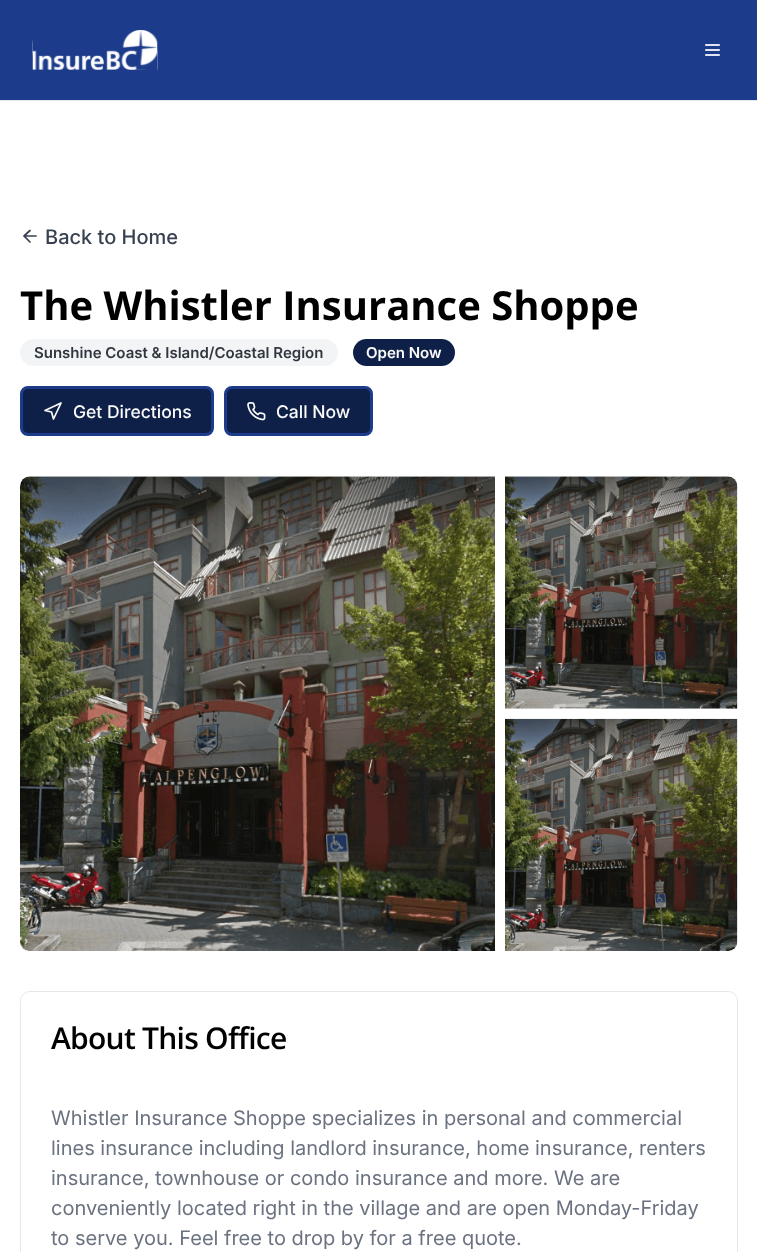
<svg xmlns="http://www.w3.org/2000/svg" xmlns:xlink="http://www.w3.org/1999/xlink" width="757" height="1252" viewBox="0 0 757 1252">
<style>
.cls-1{font:500 20px Inter;fill:#374151}
.cls-2{font:bold 40px Open Sans;fill:#000000}
.cls-3{font:600 15px Inter;fill:#31373f}
.cls-4{font:600 15px Inter;fill:#fafafa}
.cls-5{font:500 17.5px Inter;fill:#fafafa}
.cls-6{font:600 30px Open Sans;letter-spacing:-0.75px;fill:#000000}
.cls-7{font:20px Inter;fill:#6b7280}
</style>
<rect width="100%" height="100%" fill="#ffffff"/>
<rect fill="#1c3b8a" x="0" y="0" width="757" height="100"/>
<rect fill="#e2e8f0" x="0" y="100" width="757" height="1"/>
<image xlink:href="image0.png" x="32" y="30" width="126" height="40"/>
<image xlink:href="image1.png" x="705" y="44" width="15" height="12"/>
<path fill="none" stroke="#374151" stroke-width="1.7" stroke-linecap="round" stroke-linejoin="round" d="M30 242L24 236L30 230.5M36 236H24"/>
<rect fill="#f3f4f6" x="20" y="339" width="318" height="27" rx="13.5"/>
<rect fill="#0f2048" x="353" y="339" width="102" height="27" rx="13.5"/>
<rect fill="#0f2048" stroke="#1c3b8a" stroke-width="3" x="21.5" y="387.5" width="191" height="47" rx="6.5"/>
<path fill="none" stroke="#fafafa" stroke-width="1.7" stroke-linecap="round" stroke-linejoin="round" d="M45 410.5L61 403L53.5 419L51.5 412Z"/>
<rect fill="#0f2048" stroke="#1c3b8a" stroke-width="3" x="225.5" y="387.5" width="146" height="47" rx="6.5"/>
<image xlink:href="image2.png" x="247" y="402" width="19" height="19"/>
<image xlink:href="image3.png" x="20" y="476" width="475" height="475"/>
<image xlink:href="image4.png" x="505" y="476" width="233" height="233"/>
<image xlink:href="image5.png" x="505" y="718" width="233" height="233"/>
<rect fill="none" stroke="#e5e7eb" x="20.5" y="991.5" width="717" height="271" rx="9.5"/>
<text class="cls-1" x="45" y="244">Back to Home</text>
<text class="cls-2" x="20" y="320">The Whistler Insurance Shoppe</text>
<text class="cls-3" x="34" y="358">Sunshine Coast &amp; Island/Coastal Region</text>
<text class="cls-4" x="366" y="358">Open Now</text>
<text class="cls-5" x="73" y="418">Get Directions</text>
<text class="cls-5" x="276" y="418">Call Now</text>
<text class="cls-6" x="51" y="1049">About This Office</text>
<text class="cls-7"><tspan x="51" y="1125">Whistler Insurance Shoppe specializes in personal and commercial</tspan><tspan x="51" y="1155">lines insurance including landlord insurance, home insurance, renters</tspan><tspan x="51" y="1185">insurance, townhouse or condo insurance and more. We are</tspan><tspan x="51" y="1215">conveniently located right in the village and are open Monday-Friday</tspan><tspan x="51" y="1245">to serve you. Feel free to drop by for a free quote.</tspan></text>
</svg>
